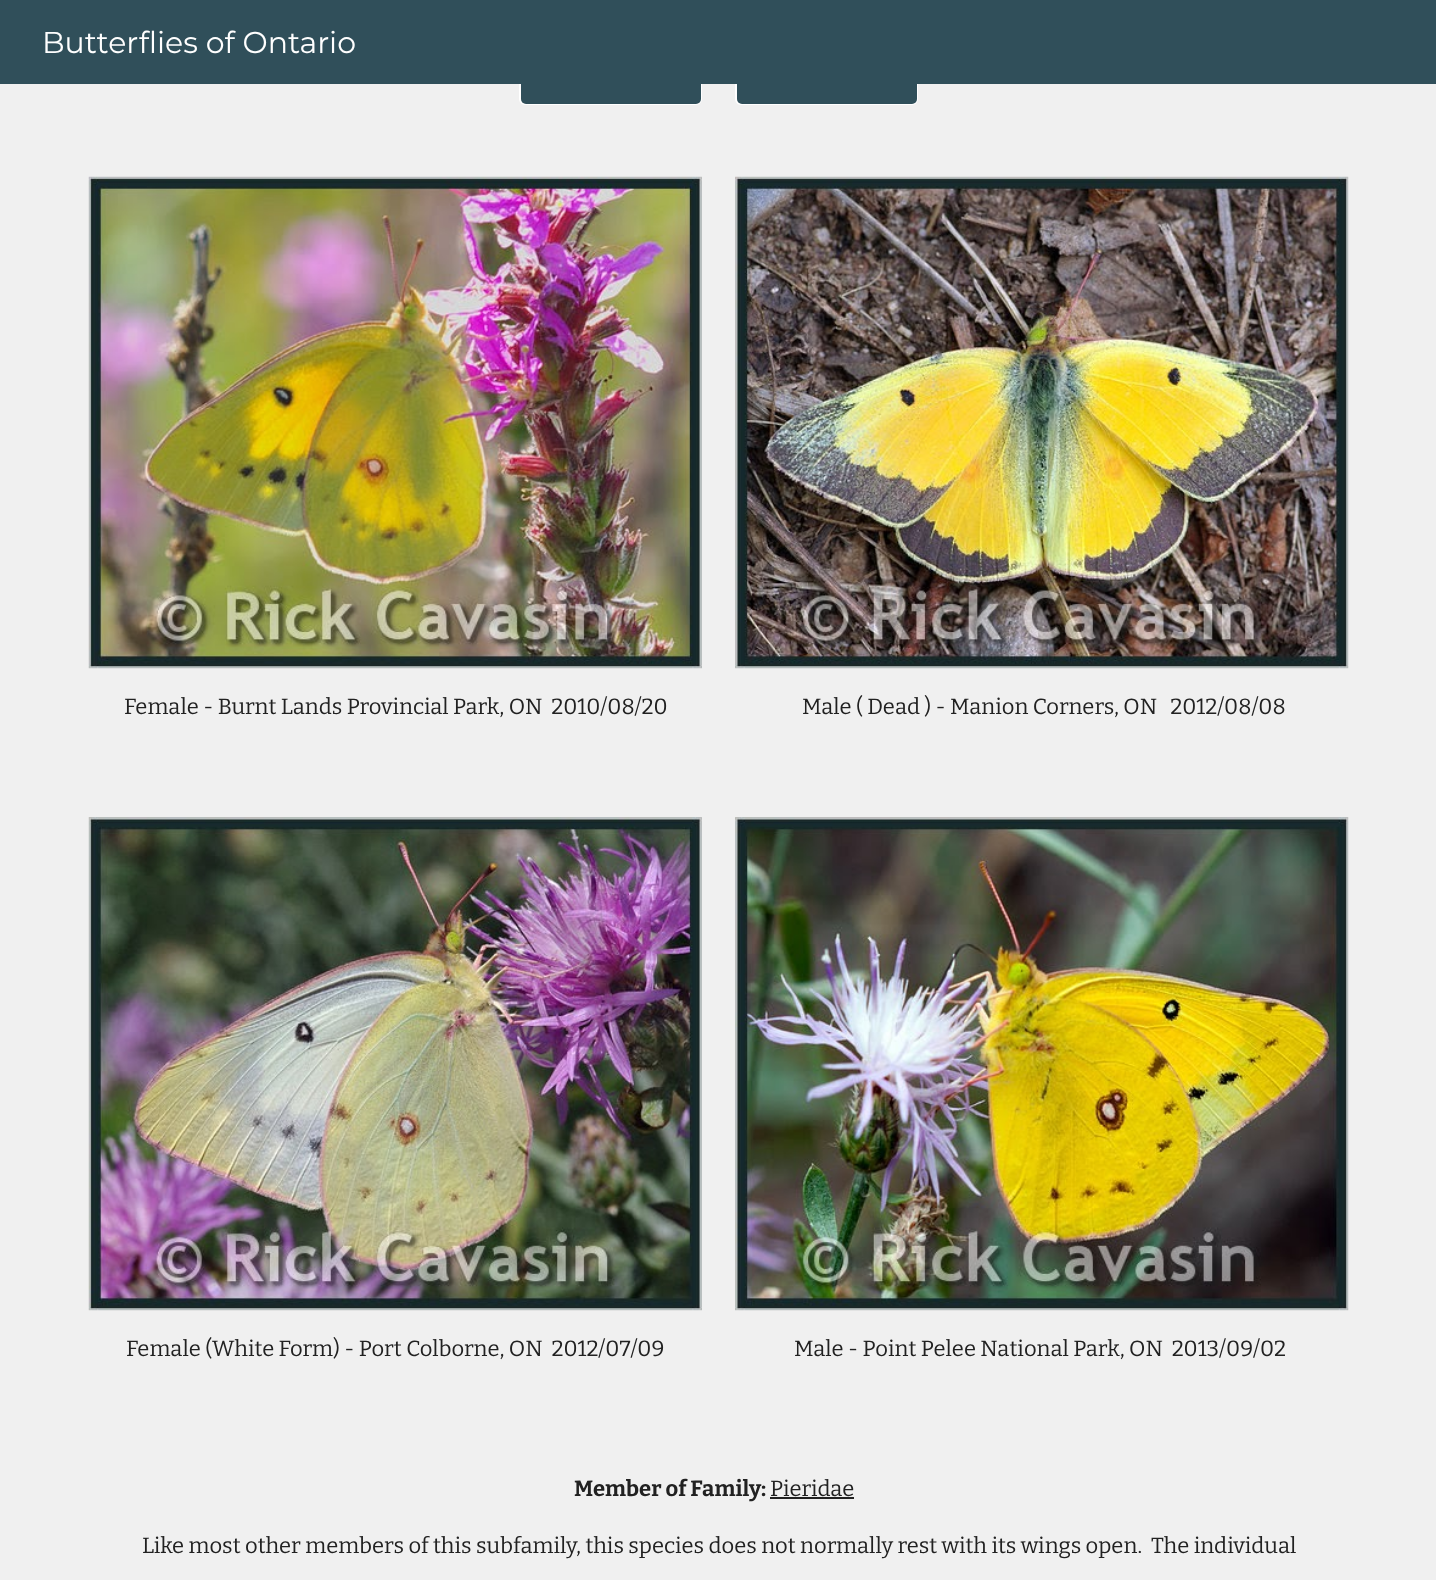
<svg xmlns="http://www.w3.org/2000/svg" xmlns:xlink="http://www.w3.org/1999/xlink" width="1436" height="1580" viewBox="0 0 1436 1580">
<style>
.cls-1{font:30px Montserrat;fill:#ffffff}
.cls-2{font:22px Bitter;fill:#212121}
.cls-3{font:bold 22px Bitter;fill:#212121}
</style>
<rect width="100%" height="100%" fill="#f0f0f0"/>
<rect fill="none" stroke="#ffffff" stroke-width="2" x="520" y="52" width="181" height="52" rx="5"/>
<rect fill="#304f5a" x="521" y="53" width="180" height="51" rx="5"/>
<rect fill="none" stroke="#ffffff" stroke-width="2" x="736" y="52" width="181" height="52" rx="5"/>
<rect fill="#304f5a" x="737" y="53" width="180" height="51" rx="5"/>
<rect fill="#304f5a" x="0" y="0" width="1436" height="84"/>
<image xlink:href="image0.png" x="88" y="176" width="614" height="493"/>
<image xlink:href="image1.png" x="735" y="176" width="614" height="493"/>
<image xlink:href="image2.png" x="88" y="817" width="614" height="494"/>
<image xlink:href="image3.png" x="735" y="817" width="614" height="494"/>
<rect fill="#212121" x="770" y="1497" width="84" height="2"/>
<text class="cls-1" x="42" y="53">Butterflies of Ontario</text>
<text class="cls-2" xml:space="preserve" x="124" y="714">Female - Burnt Lands Provincial Park, ON  2010/08/20</text>
<text class="cls-2" xml:space="preserve" x="802" y="714">Male ( Dead ) - Manion Corners, ON   2012/08/08</text>
<text class="cls-2" xml:space="preserve" x="126" y="1356">Female (White Form) - Port Colborne, ON  2012/07/09</text>
<text class="cls-2" xml:space="preserve" x="794" y="1356">Male - Point Pelee National Park, ON  2013/09/02</text>
<text class="cls-3" x="574" y="1496">Member of Family:</text>
<text class="cls-2" x="770" y="1496">Pieridae</text>
<text class="cls-2" xml:space="preserve" x="142" y="1553">Like most other members of this subfamily, this species does not normally rest with its wings open.  The individual</text>
</svg>
